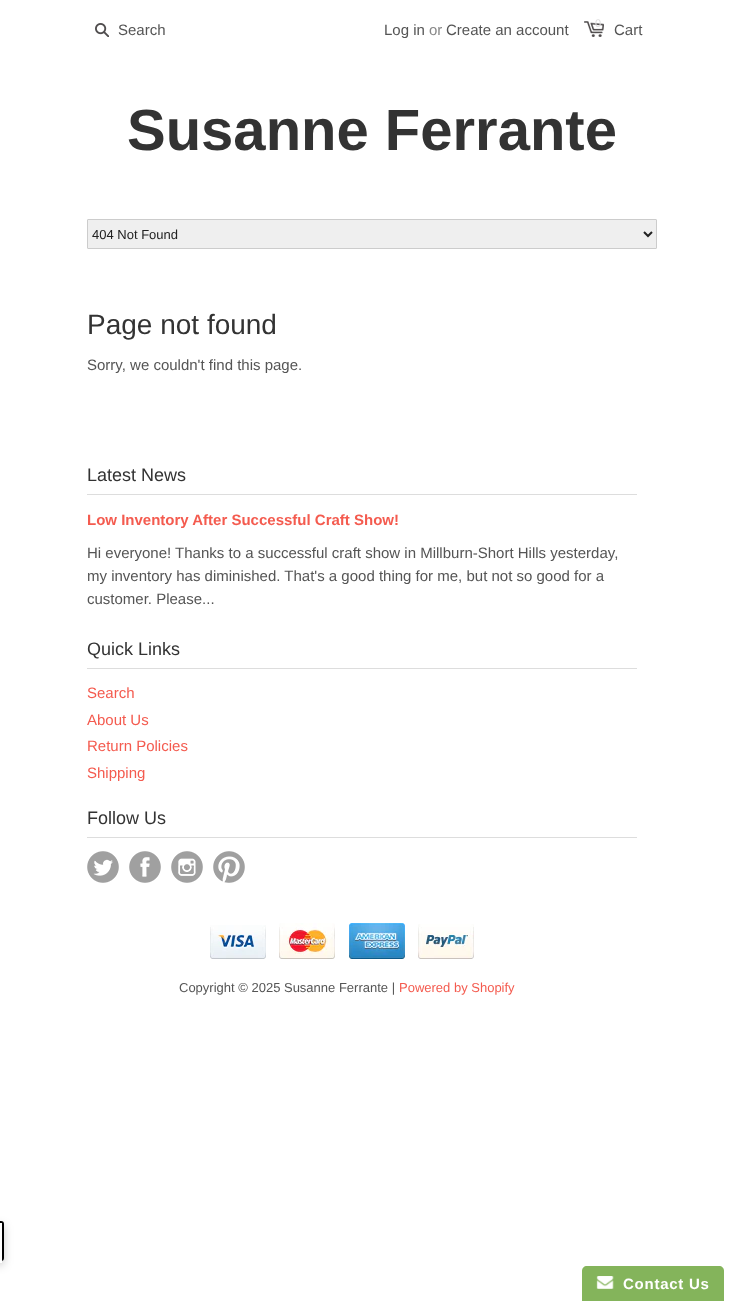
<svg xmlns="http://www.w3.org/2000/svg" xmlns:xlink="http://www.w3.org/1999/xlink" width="744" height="1301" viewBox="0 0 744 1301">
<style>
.cls-1{font:15px Liberation Sans;fill:#555555}
.cls-2{font:15px Liberation Sans;fill:#888888}
.cls-3{font:11px Liberation Sans;fill:#e0dfe0}
.cls-4{font:bold 58px Liberation Sans;fill:#333333}
.cls-5{font:13px Liberation Sans;fill:#222222}
.cls-6{font:28px Liberation Sans;fill:#333333}
.cls-7{font:18px Liberation Sans;fill:#333333}
.cls-8{font:bold 15px Liberation Sans;fill:#f45b4f}
.cls-9{font:15px Liberation Sans;fill:#f45b4f}
.cls-10{font:13px Liberation Sans;fill:#555555}
.cls-11{font:13px Liberation Sans;fill:#f45b4f}
.cls-12{font:bold 15px Liberation Sans;letter-spacing:0.75px;fill:#ffffff}
</style>
<rect width="100%" height="100%" fill="#ffffff"/>
<image xlink:href="image0.png" x="95" y="23" width="14" height="14"/>
<image xlink:href="image1.png" x="584" y="21" width="20" height="16"/>
<rect fill="#efefef" stroke="#cccccc" x="87.5" y="219.5" width="569" height="29" rx="0.5"/>
<path fill="none" stroke="#222222" stroke-width="2" d="M644 232L648 236L652 232"/>
<rect fill="#dddddd" x="87" y="494" width="550" height="1"/>
<rect fill="#dddddd" x="87" y="668" width="550" height="1"/>
<rect fill="#dddddd" x="87" y="837" width="550" height="1"/>
<image xlink:href="image2.png" x="87" y="851" width="32" height="32"/>
<image xlink:href="image3.png" x="129" y="851" width="32" height="32"/>
<image xlink:href="image4.png" x="171" y="851" width="32" height="32"/>
<image xlink:href="image5.png" x="213" y="851" width="32" height="32"/>
<image xlink:href="image6.png" x="210" y="925" width="56" height="34"/>
<image xlink:href="image7.png" x="279" y="923" width="56" height="36"/>
<image xlink:href="image8.png" x="349" y="923" width="56" height="36"/>
<image xlink:href="image9.png" x="418" y="924" width="56" height="35"/>
<rect fill="#000000" fill-opacity="0.2" filter="blur(5px)" x="-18" y="1225" width="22" height="40" rx="3"/>
<path fill="none" stroke="#000000" stroke-width="2" d="M-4 1222H1C2 1222 3 1223 3 1224V1258C3 1259 2 1260 1 1260H-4Z"/>
<rect fill="#ffffff" x="0" y="1223" width="2" height="40"/>
<path fill="#84b45b" d="M587 1266H719C722 1266 724 1268 724 1271V1301H582V1271C582 1268 584 1266 587 1266Z"/>
<image xlink:href="image10.png" x="596" y="1276" width="18" height="13"/>
<text class="cls-1" x="118" y="35">Search</text>
<text class="cls-1" x="384" y="35">Log in</text>
<text class="cls-2" x="429" y="35">or</text>
<text class="cls-1" x="446" y="35">Create an account</text>
<text class="cls-3" x="595" y="27">0</text>
<text class="cls-1" x="614" y="35">Cart</text>
<text class="cls-4" x="127" y="150">Susanne Ferrante</text>
<text class="cls-5" x="92" y="239">404 Not Found</text>
<text class="cls-6" x="87" y="334">Page not found</text>
<text class="cls-1" x="87" y="370">Sorry, we couldn't find this page.</text>
<text class="cls-7" x="87" y="481">Latest News</text>
<text class="cls-8" x="87" y="525">Low Inventory After Successful Craft Show!</text>
<text class="cls-1"><tspan x="87" y="558">Hi everyone! Thanks to a successful craft show in Millburn-Short Hills yesterday,</tspan><tspan x="87" y="581">my inventory has diminished. That's a good thing for me, but not so good for a</tspan><tspan x="87" y="604">customer. Please...</tspan></text>
<text class="cls-7" x="87" y="655">Quick Links</text>
<text class="cls-9"><tspan x="87" y="698">Search</tspan><tspan x="87" y="725">About Us</tspan><tspan x="87" y="751">Return Policies</tspan><tspan x="87" y="778">Shipping</tspan></text>
<text class="cls-7" x="87" y="824">Follow Us</text>
<text class="cls-10" x="179" y="992">Copyright © 2025 Susanne Ferrante |</text>
<text class="cls-11" x="399" y="992">Powered by Shopify</text>
<text class="cls-12" x="623" y="1289">Contact Us</text>
</svg>
